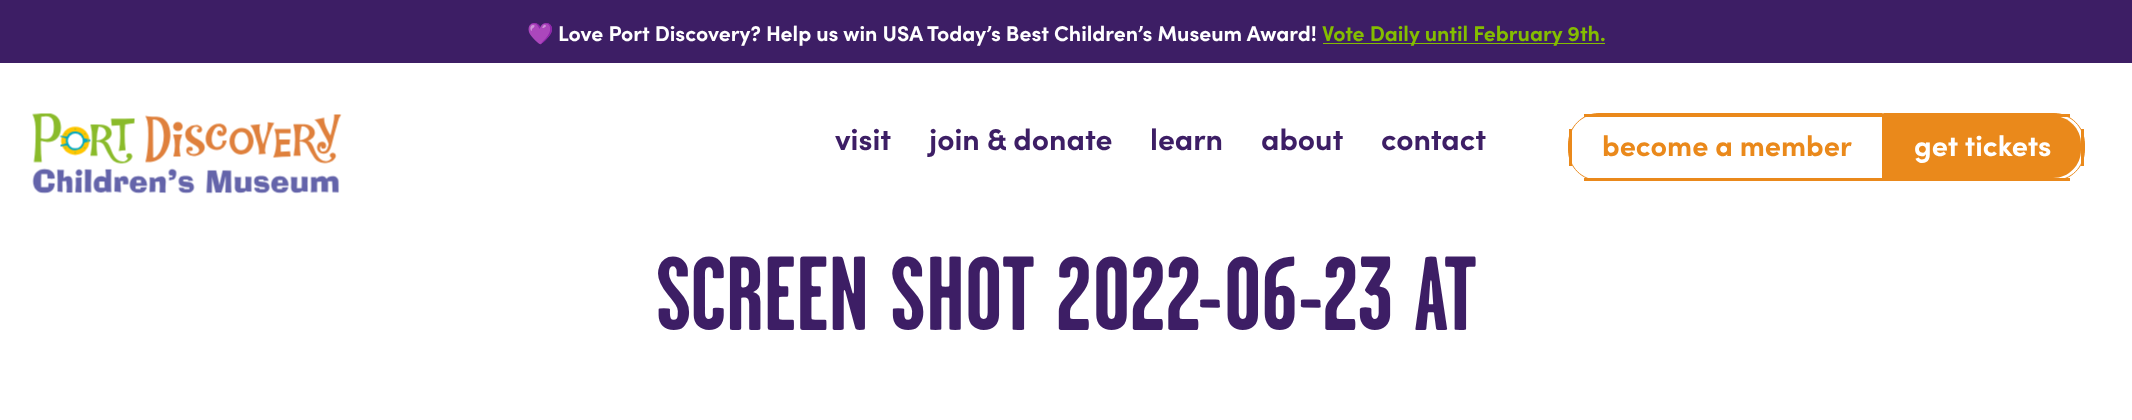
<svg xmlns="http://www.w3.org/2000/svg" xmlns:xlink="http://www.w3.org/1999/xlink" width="2132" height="420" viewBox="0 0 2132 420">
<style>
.cls-1{font:bold 21.25px Noto Color Emoji;fill:#ffffff}
.cls-2{font:bold 21.25px Sofia;fill:#ffffff}
.cls-3{font:bold 21.25px Sofia;fill:#84bd00}
.cls-4{font:bold 30px Sofia;fill:#3d1e65}
.cls-5{font:bold 28.75px Sofia;fill:#ea891b}
.cls-6{font:bold 28.75px Sofia;fill:#ffffff}
.cls-7{font:bold 105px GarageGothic;fill:#3d1e65}
</style>
<rect width="100%" height="100%" fill="#ffffff"/>
<rect fill="#3d1e65" x="0" y="0" width="2132" height="63"/>
<rect fill="#84bd00" x="1323" y="43" width="282" height="1"/>
<image xlink:href="image0.png" x="32" y="113" width="310" height="81"/>
<path fill="none" stroke="#ea891b" d="M1599 113.5H1882.5V180.5H1599C1582 180.5 1568.5 167 1568.5 150V144C1568.5 127 1582 113.5 1599 113.5Z"/>
<rect fill="#ea891b" x="1584" y="114" width="299" height="3"/>
<rect fill="#ea891b" x="1584" y="178" width="299" height="3"/>
<rect fill="#ea891b" x="1569" y="129" width="3" height="37"/>
<path fill="#ea891b" d="M1884 116H2053C2068.5 116 2081 128.5 2081 144V150C2081 165.5 2068.5 178 2053 178H1884Z"/>
<path fill="none" stroke="#ea891b" d="M1883.5 113.5H2054C2071 113.5 2084.5 127 2084.5 144V150C2084.5 167 2071 180.5 2054 180.5H1883.5Z"/>
<rect fill="#ea891b" x="1883" y="114" width="187" height="3"/>
<rect fill="#ea891b" x="2081" y="129" width="3" height="37"/>
<rect fill="#ea891b" x="1883" y="178" width="187" height="3"/>
<text class="cls-1" x="527" y="41">💜</text>
<text class="cls-2" x="558" y="41">Love Port Discovery? Help us win USA Today’s Best Children’s Museum Award!</text>
<text class="cls-3" x="1322" y="41">Vote Daily until February 9th.</text>
<text class="cls-4" x="835" y="150">visit</text>
<text class="cls-4" x="929" y="150">join &amp; donate</text>
<text class="cls-4" x="1150" y="150">learn</text>
<text class="cls-4" x="1261" y="150">about</text>
<text class="cls-4" x="1381" y="150">contact</text>
<text class="cls-5" x="1602" y="156">become a member</text>
<text class="cls-6" x="1914" y="156">get tickets</text>
<text class="cls-7" x="656" y="330">SCREEN SHOT 2022-06-23 AT</text>
</svg>
